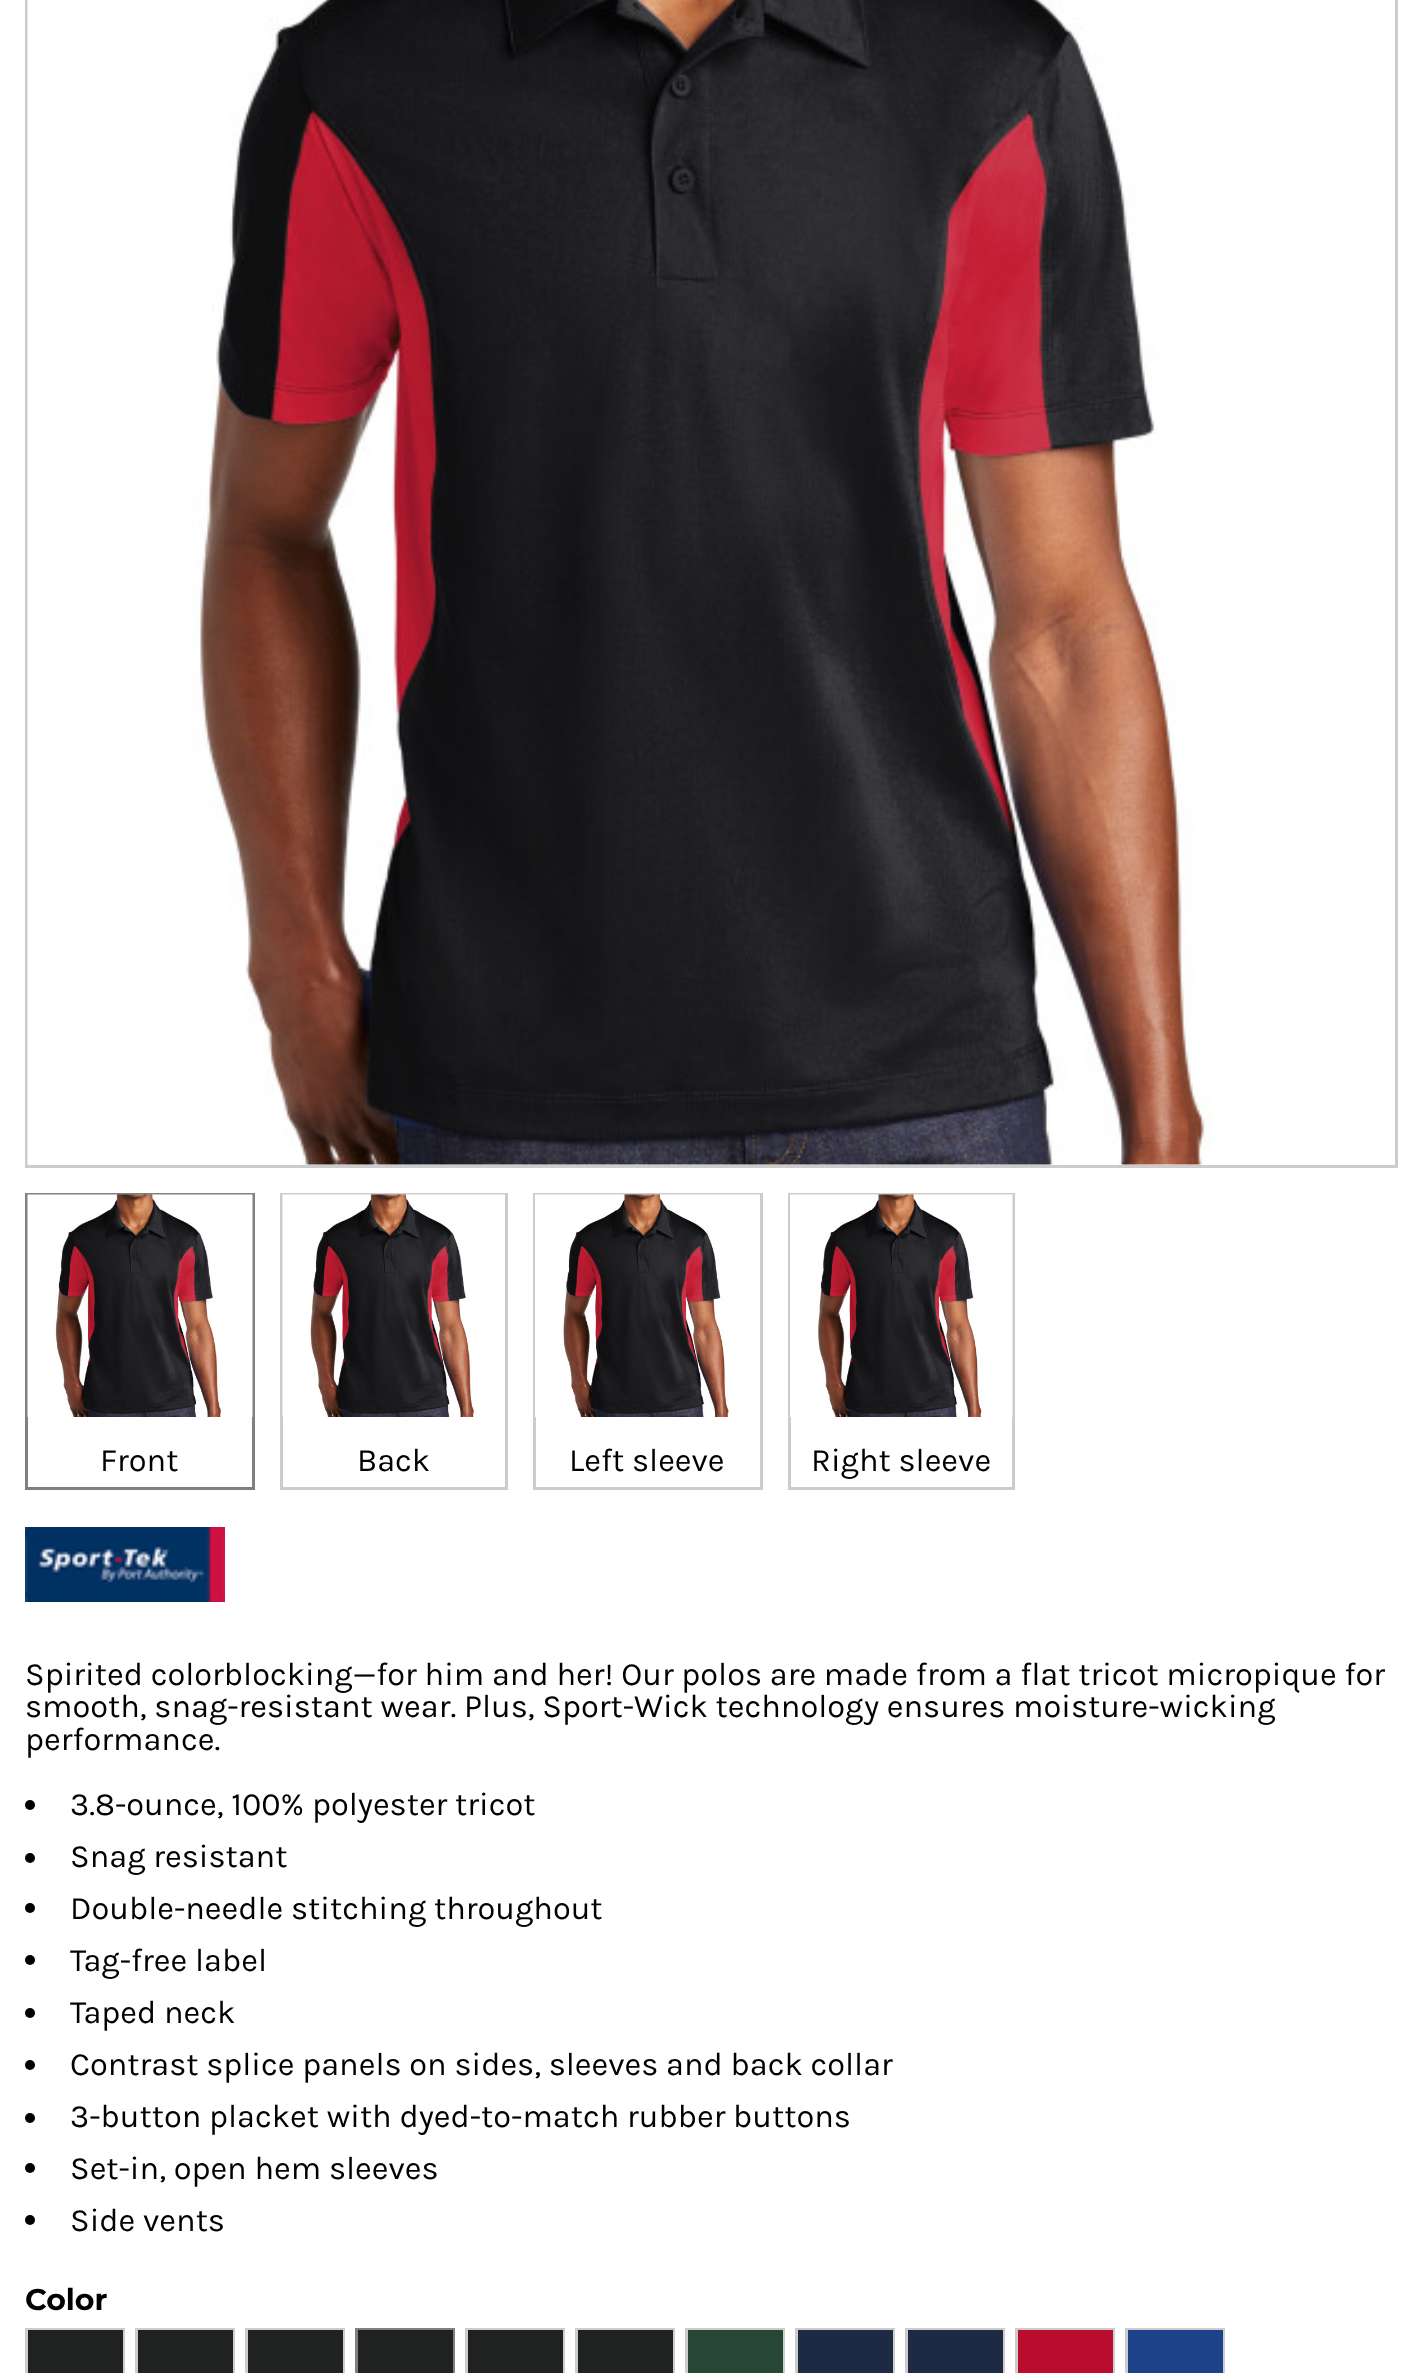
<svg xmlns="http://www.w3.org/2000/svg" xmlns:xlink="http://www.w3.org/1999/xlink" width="1421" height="2373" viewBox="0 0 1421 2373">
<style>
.cls-1{font:32.5px Karla;fill:#000000}
.cls-2{font:bold 30px Montserrat;fill:#000000}
</style>
<rect width="100%" height="100%" fill="#ffffff"/>
<rect fill="none" stroke="#cccccc" stroke-width="3" x="26.5" y="-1.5" width="1370" height="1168"/>
<image xlink:href="image0.png" x="27" y="0" width="1186" height="1165"/>
<rect fill="none" stroke="#808080" stroke-width="3" x="26.5" y="1194.5" width="227" height="294"/>
<image xlink:href="image1.png" x="27" y="1194" width="226" height="223"/>
<rect fill="none" stroke="#cccccc" stroke-width="3" x="281.5" y="1194.5" width="225" height="294"/>
<image xlink:href="image2.png" x="282" y="1194" width="223" height="223"/>
<rect fill="none" stroke="#cccccc" stroke-width="3" x="534.5" y="1194.5" width="227" height="294"/>
<image xlink:href="image3.png" x="535" y="1194" width="225" height="223"/>
<rect fill="none" stroke="#cccccc" stroke-width="3" x="789.5" y="1194.5" width="224" height="294"/>
<image xlink:href="image4.png" x="790" y="1194" width="223" height="223"/>
<image xlink:href="image5.png" x="25" y="1527" width="200" height="75"/>
<circle fill="#000000" cx="30" cy="1805" r="5"/>
<circle fill="#000000" cx="30" cy="1858" r="5"/>
<circle fill="#000000" cx="30" cy="1908" r="5"/>
<circle fill="#000000" cx="30" cy="1960" r="5"/>
<circle fill="#000000" cx="30" cy="2013" r="5"/>
<circle fill="#000000" cx="30" cy="2065" r="5"/>
<circle fill="#000000" cx="30" cy="2118" r="5"/>
<circle fill="#000000" cx="30" cy="2168" r="5"/>
<circle fill="#000000" cx="30" cy="2220" r="5"/>
<rect fill="none" stroke="#cccccc" stroke-width="3" x="26.5" y="2329.5" width="97" height="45"/>
<rect fill="#202221" x="28" y="2330" width="95" height="43"/>
<rect fill="none" stroke="#cccccc" stroke-width="3" x="136.5" y="2329.5" width="97" height="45"/>
<rect fill="#202221" x="138" y="2330" width="95" height="43"/>
<rect fill="none" stroke="#cccccc" stroke-width="3" x="246.5" y="2329.5" width="97" height="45"/>
<rect fill="#202221" x="248" y="2330" width="95" height="43"/>
<rect fill="none" stroke="#808080" stroke-width="3" x="356.5" y="2329.5" width="97" height="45"/>
<rect fill="#202221" x="358" y="2330" width="95" height="43"/>
<rect fill="none" stroke="#cccccc" stroke-width="3" x="466.5" y="2329.5" width="97" height="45"/>
<rect fill="#202221" x="468" y="2330" width="95" height="43"/>
<rect fill="none" stroke="#cccccc" stroke-width="3" x="576.5" y="2329.5" width="97" height="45"/>
<rect fill="#202221" x="578" y="2330" width="95" height="43"/>
<rect fill="none" stroke="#cccccc" stroke-width="3" x="686.5" y="2329.5" width="97" height="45"/>
<rect fill="#274734" x="688" y="2330" width="95" height="43"/>
<rect fill="none" stroke="#cccccc" stroke-width="3" x="796.5" y="2329.5" width="97" height="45"/>
<rect fill="#1e2944" x="798" y="2330" width="95" height="43"/>
<rect fill="none" stroke="#cccccc" stroke-width="3" x="906.5" y="2329.5" width="97" height="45"/>
<rect fill="#1e2944" x="908" y="2330" width="95" height="43"/>
<rect fill="none" stroke="#cccccc" stroke-width="3" x="1016.5" y="2329.5" width="97" height="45"/>
<rect fill="#b90c2e" x="1018" y="2330" width="95" height="43"/>
<rect fill="none" stroke="#cccccc" stroke-width="3" x="1126.5" y="2329.5" width="97" height="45"/>
<rect fill="#1c4289" x="1128" y="2330" width="95" height="43"/>
<text class="cls-1" x="100" y="1471">Front</text>
<text class="cls-1" x="357" y="1471">Back</text>
<text class="cls-1" x="569" y="1471">Left sleeve</text>
<text class="cls-1" x="811" y="1471">Right sleeve</text>
<text class="cls-1"><tspan x="25" y="1685">Spirited colorblocking—for him and her! Our polos are made from a flat tricot micropique for</tspan><tspan x="25" y="1717">smooth, snag-resistant wear. Plus, Sport-Wick technology ensures moisture-wicking</tspan><tspan x="25" y="1750">performance.</tspan></text>
<text class="cls-1"><tspan x="70" y="1815">3.8-ounce, 100% polyester tricot</tspan><tspan x="70" y="1867">Snag resistant</tspan><tspan x="70" y="1919">Double-needle stitching throughout</tspan><tspan x="70" y="1971">Tag-free label</tspan><tspan x="70" y="2023">Taped neck</tspan><tspan x="70" y="2075">Contrast splice panels on sides, sleeves and back collar</tspan><tspan x="70" y="2127">3-button placket with dyed-to-match rubber buttons</tspan><tspan x="70" y="2179">Set-in, open hem sleeves</tspan><tspan x="70" y="2231">Side vents</tspan></text>
<text class="cls-2" x="25" y="2310">Color</text>
</svg>
